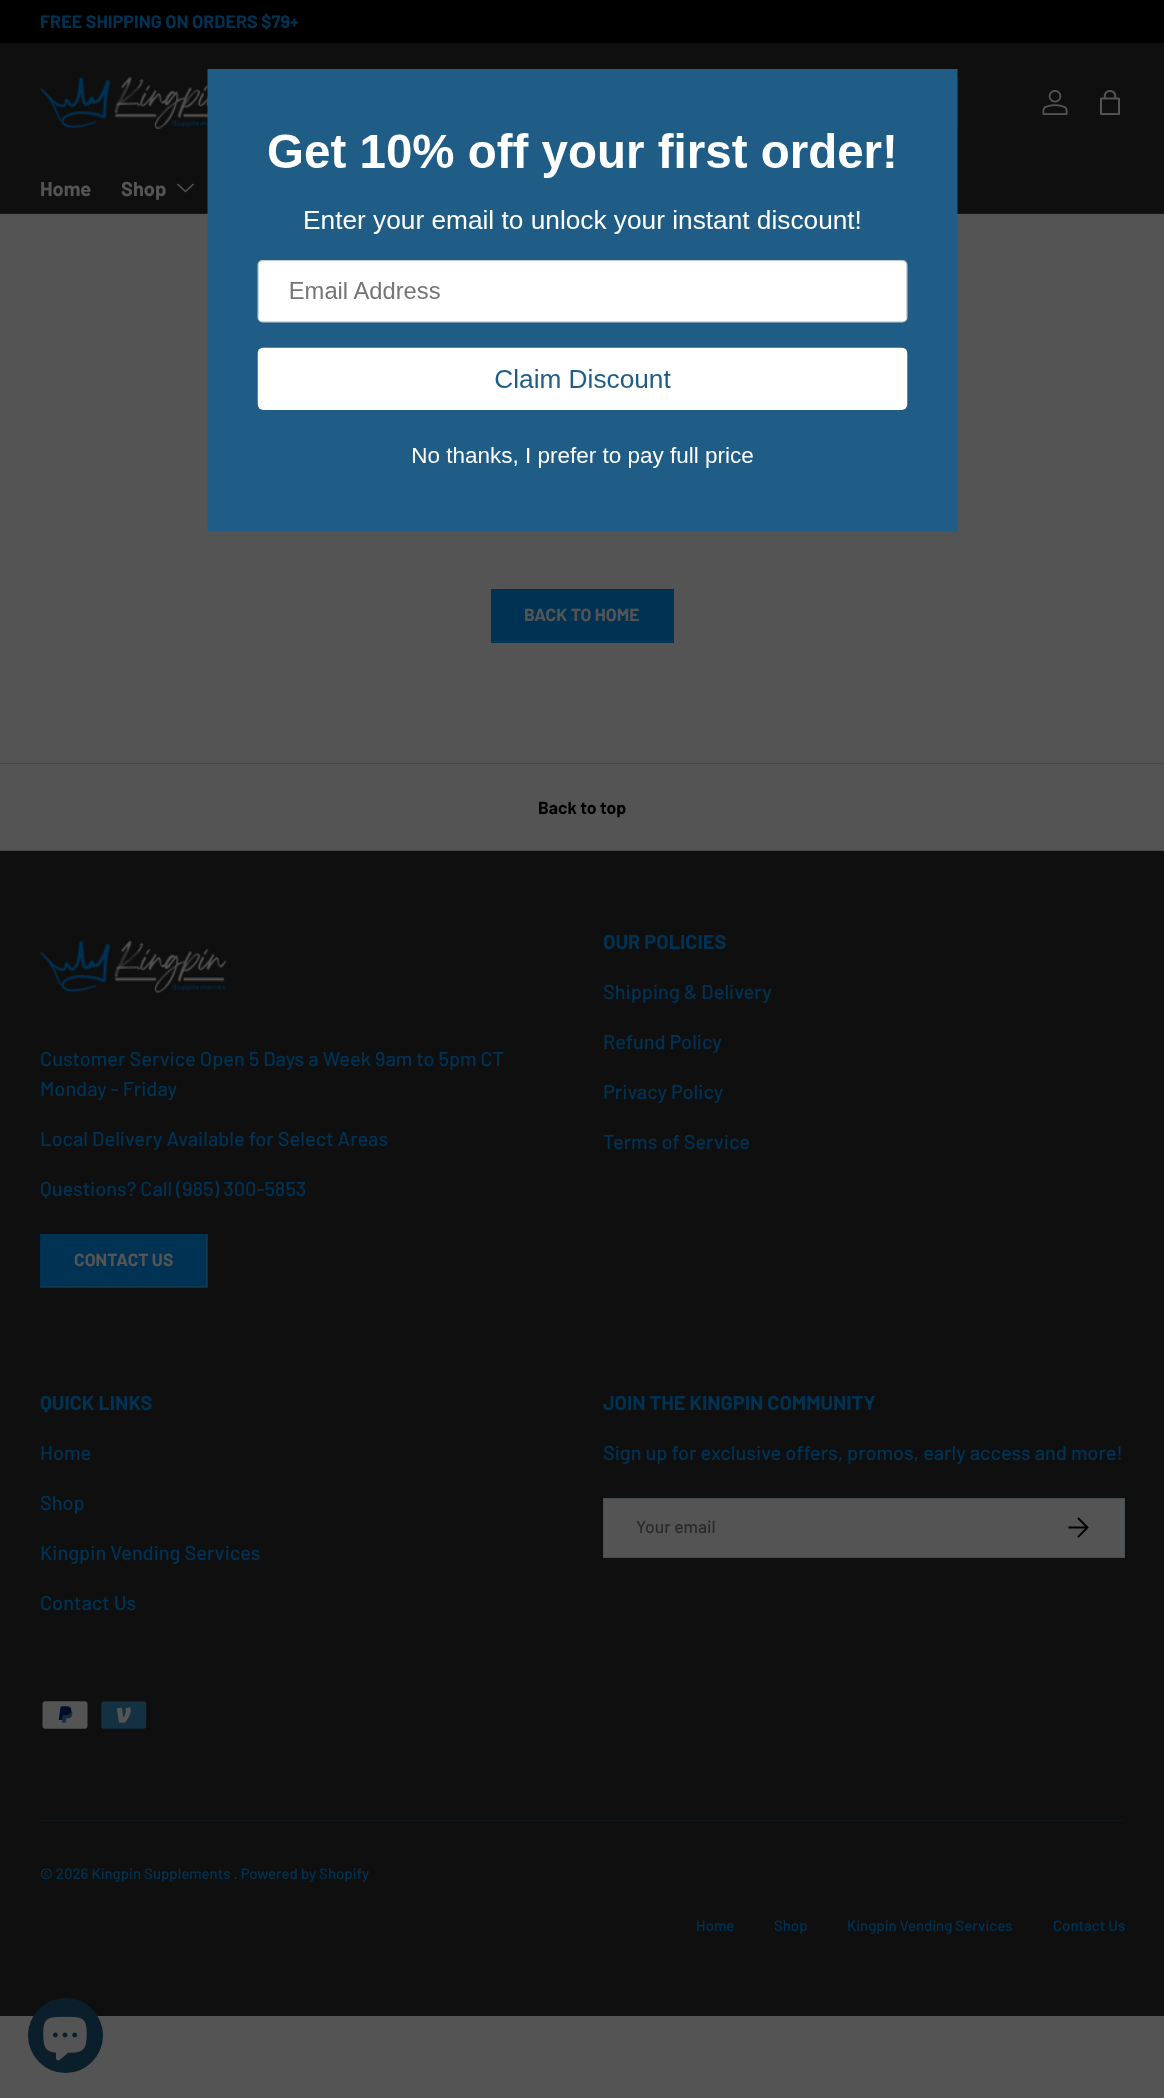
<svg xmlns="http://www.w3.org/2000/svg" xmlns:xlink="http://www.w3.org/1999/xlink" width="1164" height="2098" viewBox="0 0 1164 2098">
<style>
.cls-1{font:bold 18px Barlow;fill:#0297fc}
.cls-2{font:bold 20px Barlow;fill:#ffffff}
.cls-3{font:bold 17.5px Barlow;fill:#ffffff}
.cls-4{font:bold 17.5px Barlow;fill:#000000}
.cls-5{font:500 20px Barlow;fill:#0297fc}
.cls-6{font:bold 20px Barlow;fill:#0297fc}
.cls-7{font:500 17.5px Barlow;fill:#808080}
.cls-8{font:500 15px Barlow;fill:#0297fc}
</style>
<defs>
<linearGradient id="g1" gradientUnits="userSpaceOnUse" x1="142" y1="551" x2="663" y2="681"><stop offset="0.6" stop-color="#37adfc"/><stop offset="0.6" stop-color="#0297fc"/><stop offset="1" stop-color="#0297fc"/></linearGradient>
<linearGradient id="g2" gradientUnits="userSpaceOnUse" x1="-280" y1="1201" x2="198" y2="1320"><stop offset="0.6" stop-color="#37adfc"/><stop offset="0.6" stop-color="#0297fc"/><stop offset="1" stop-color="#0297fc"/></linearGradient>
</defs>
<rect width="100%" height="100%" fill="#ffffff"/>
<rect fill="#000000" x="0" y="0" width="1164" height="43"/>
<rect fill="#2e2e2e" x="0" y="43" width="1164" height="170"/>
<rect fill="#4d4d4d" x="0" y="213" width="1164" height="1"/>
<image xlink:href="image1.png" x="40" y="76" width="168" height="54"/>
<rect fill="#434343" x="957" y="78" width="2" height="51"/>
<image xlink:href="image2.png" x="1042" y="90" width="26" height="25"/>
<image xlink:href="image3.png" x="1100" y="90" width="20" height="25"/>
<path fill="none" stroke="#ffffff" stroke-width="1.6" d="M193.5 184L185.5 191.5L177.5 184"/>
<rect fill="#37adfc" x="492" y="641" width="181" height="1"/>
<rect fill="url(#g1)" x="492" y="590" width="181" height="51"/>
<rect fill="none" stroke="#0297fc" x="491.5" y="589.5" width="182" height="53"/>
<rect fill="#d9d9d9" x="0" y="763" width="1164" height="1"/>
<rect fill="#d9d9d9" x="0" y="850" width="1164" height="1"/>
<rect fill="#2e2e2e" x="0" y="851" width="1164" height="1165"/>
<image xlink:href="image4.png" x="40" y="940" width="187" height="54"/>
<rect fill="#37adfc" x="41" y="1235" width="166" height="52"/>
<rect fill="url(#g2)" x="41" y="1235" width="165" height="51"/>
<rect fill="none" stroke="#0297fc" x="40.5" y="1234.5" width="167" height="53"/>
<rect fill="#ffffff" stroke="#cceafe" x="603.5" y="1498.5" width="521" height="59"/>
<path fill="none" stroke="#000000" stroke-width="1.9" d="M1068.5 1527.5H1086.5M1078 1518L1087.5 1527.5L1078 1537"/>
<image xlink:href="image5.png" x="42" y="1701" width="46" height="28"/>
<image xlink:href="image6.png" x="101" y="1701" width="46" height="28"/>
<rect fill="#254357" x="40" y="1820" width="1085" height="1"/>
<circle fill="#1f5d87" cx="65.5" cy="2035.5" r="37.5"/>
<image xlink:href="image7.png" x="43" y="2016" width="44" height="45"/>
<text class="cls-1" x="40" y="28">FREE SHIPPING ON ORDERS $79+</text>
<text class="cls-2" x="40" y="196">Home</text>
<text class="cls-2" x="121" y="196">Shop</text>
<text class="cls-3" x="524" y="621">BACK TO HOME</text>
<text class="cls-4" x="538" y="814">Back to top</text>
<text class="cls-5"><tspan x="40" y="1066">Customer Service Open 5 Days a Week 9am to 5pm CT</tspan><tspan x="40" y="1096">Monday - Friday</tspan></text>
<text class="cls-5" x="40" y="1146">Local Delivery Available for Select Areas</text>
<text class="cls-5" x="40" y="1196">Questions? Call (985) 300-5853</text>
<text class="cls-3" x="74" y="1266">CONTACT US</text>
<text class="cls-6" x="603" y="949">OUR POLICIES</text>
<text class="cls-5" x="603" y="999">Shipping &amp; Delivery</text>
<text class="cls-5" x="603" y="1049">Refund Policy</text>
<text class="cls-5" x="603" y="1099">Privacy Policy</text>
<text class="cls-5" x="603" y="1149">Terms of Service</text>
<text class="cls-6" x="40" y="1410">QUICK LINKS</text>
<text class="cls-5" x="40" y="1460">Home</text>
<text class="cls-5" x="40" y="1510">Shop</text>
<text class="cls-5" x="40" y="1560">Kingpin Vending Services</text>
<text class="cls-5" x="40" y="1610">Contact Us</text>
<text class="cls-6" x="603" y="1410">JOIN THE KINGPIN COMMUNITY</text>
<text class="cls-5" x="603" y="1460">Sign up for exclusive offers, promos, early access and more!</text>
<text class="cls-7" x="636" y="1533">Your email</text>
<text class="cls-8" x="40" y="1879">© 2026 Kingpin Supplements . Powered by Shopify</text>
<text class="cls-8" x="696" y="1931">Home</text>
<text class="cls-8" x="774" y="1931">Shop</text>
<text class="cls-8" x="847" y="1931">Kingpin Vending Services</text>
<text class="cls-8" x="1053" y="1931">Contact Us</text>
<image xlink:href="image0.png" x="0" y="13" width="1164" height="2085"/>
</svg>
